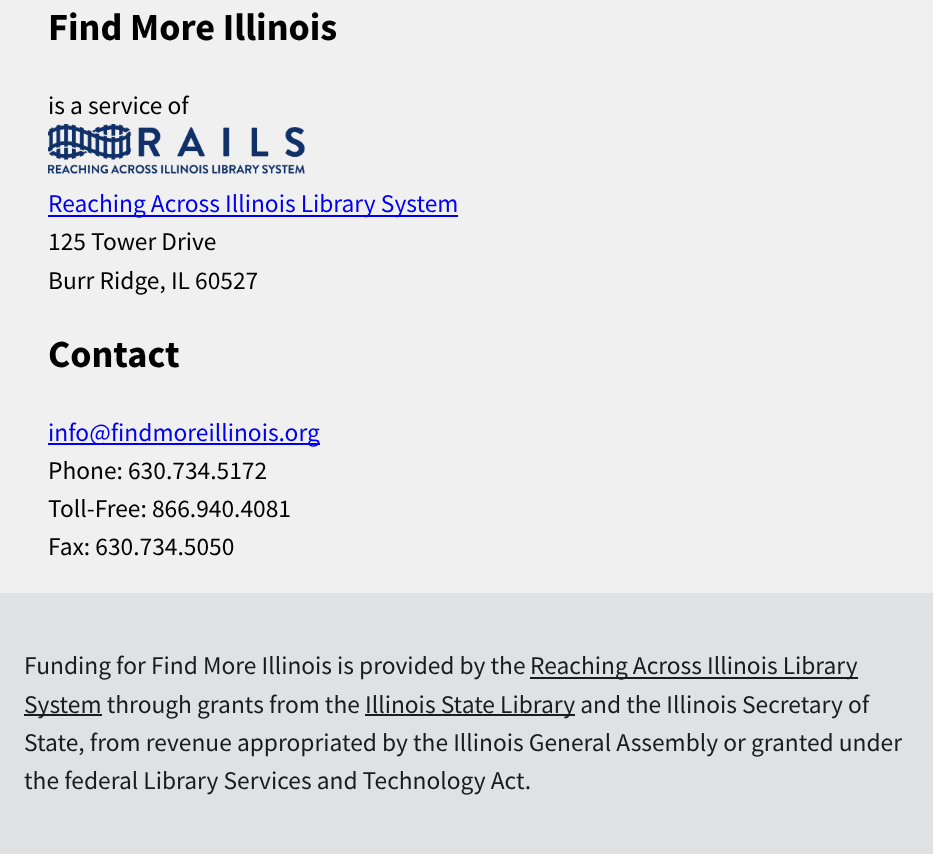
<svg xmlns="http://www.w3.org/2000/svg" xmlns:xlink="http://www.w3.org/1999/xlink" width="933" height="854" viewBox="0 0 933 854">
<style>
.cls-1{font:bold 38.25px Source Sans Pro;fill:#000000}
.cls-2{font:25.45px Source Sans Pro;fill:#000000}
.cls-3{font:25.45px Source Sans Pro;fill:#0000ee}
.cls-4{font:25.45px Source Sans Pro;fill:#1b1b1b}
</style>
<rect width="100%" height="100%" fill="#f0f0f0"/>
<image xlink:href="image0.png" x="48" y="124" width="257" height="50"/>
<rect fill="#0000ee" x="48" y="215" width="410" height="2"/>
<rect fill="#0000ee" x="48" y="443" width="272" height="2"/>
<rect fill="#dfe1e2" x="0" y="593" width="933" height="261"/>
<rect fill="#1b1b1b" x="530" y="677" width="328" height="2"/>
<rect fill="#1b1b1b" x="24" y="714" width="78" height="2"/>
<rect fill="#1b1b1b" x="365" y="714" width="210" height="2"/>
<text class="cls-1" x="48" y="40">Find More Illinois</text>
<text class="cls-2" x="48" y="114">is a service of</text>
<text class="cls-3" x="48" y="212">Reaching Across Illinois Library System</text>
<text class="cls-2"><tspan x="48" y="250">125 Tower Drive</tspan><tspan x="48" y="289">Burr Ridge, IL 60527</tspan></text>
<text class="cls-1" x="48" y="367">Contact</text>
<text class="cls-3" x="48" y="441">info@findmoreillinois.org</text>
<text class="cls-2"><tspan x="48" y="479">Phone: 630.734.5172</tspan><tspan x="48" y="517">Toll-Free: 866.940.4081</tspan><tspan x="48" y="555">Fax: 630.734.5050</tspan></text>
<text class="cls-4" x="24" y="674">Funding for Find More Illinois is provided by the</text>
<text class="cls-4" x="530" y="674">Reaching Across Illinois Library</text>
<text class="cls-4" x="24" y="713">System through grants from the</text>
<text class="cls-4" x="365" y="713">Illinois State Library and the Illinois Secretary of</text>
<text class="cls-4"><tspan x="24" y="751">State, from revenue appropriated by the Illinois General Assembly or granted under</tspan><tspan x="24" y="789">the federal Library Services and Technology Act.</tspan></text>
</svg>
